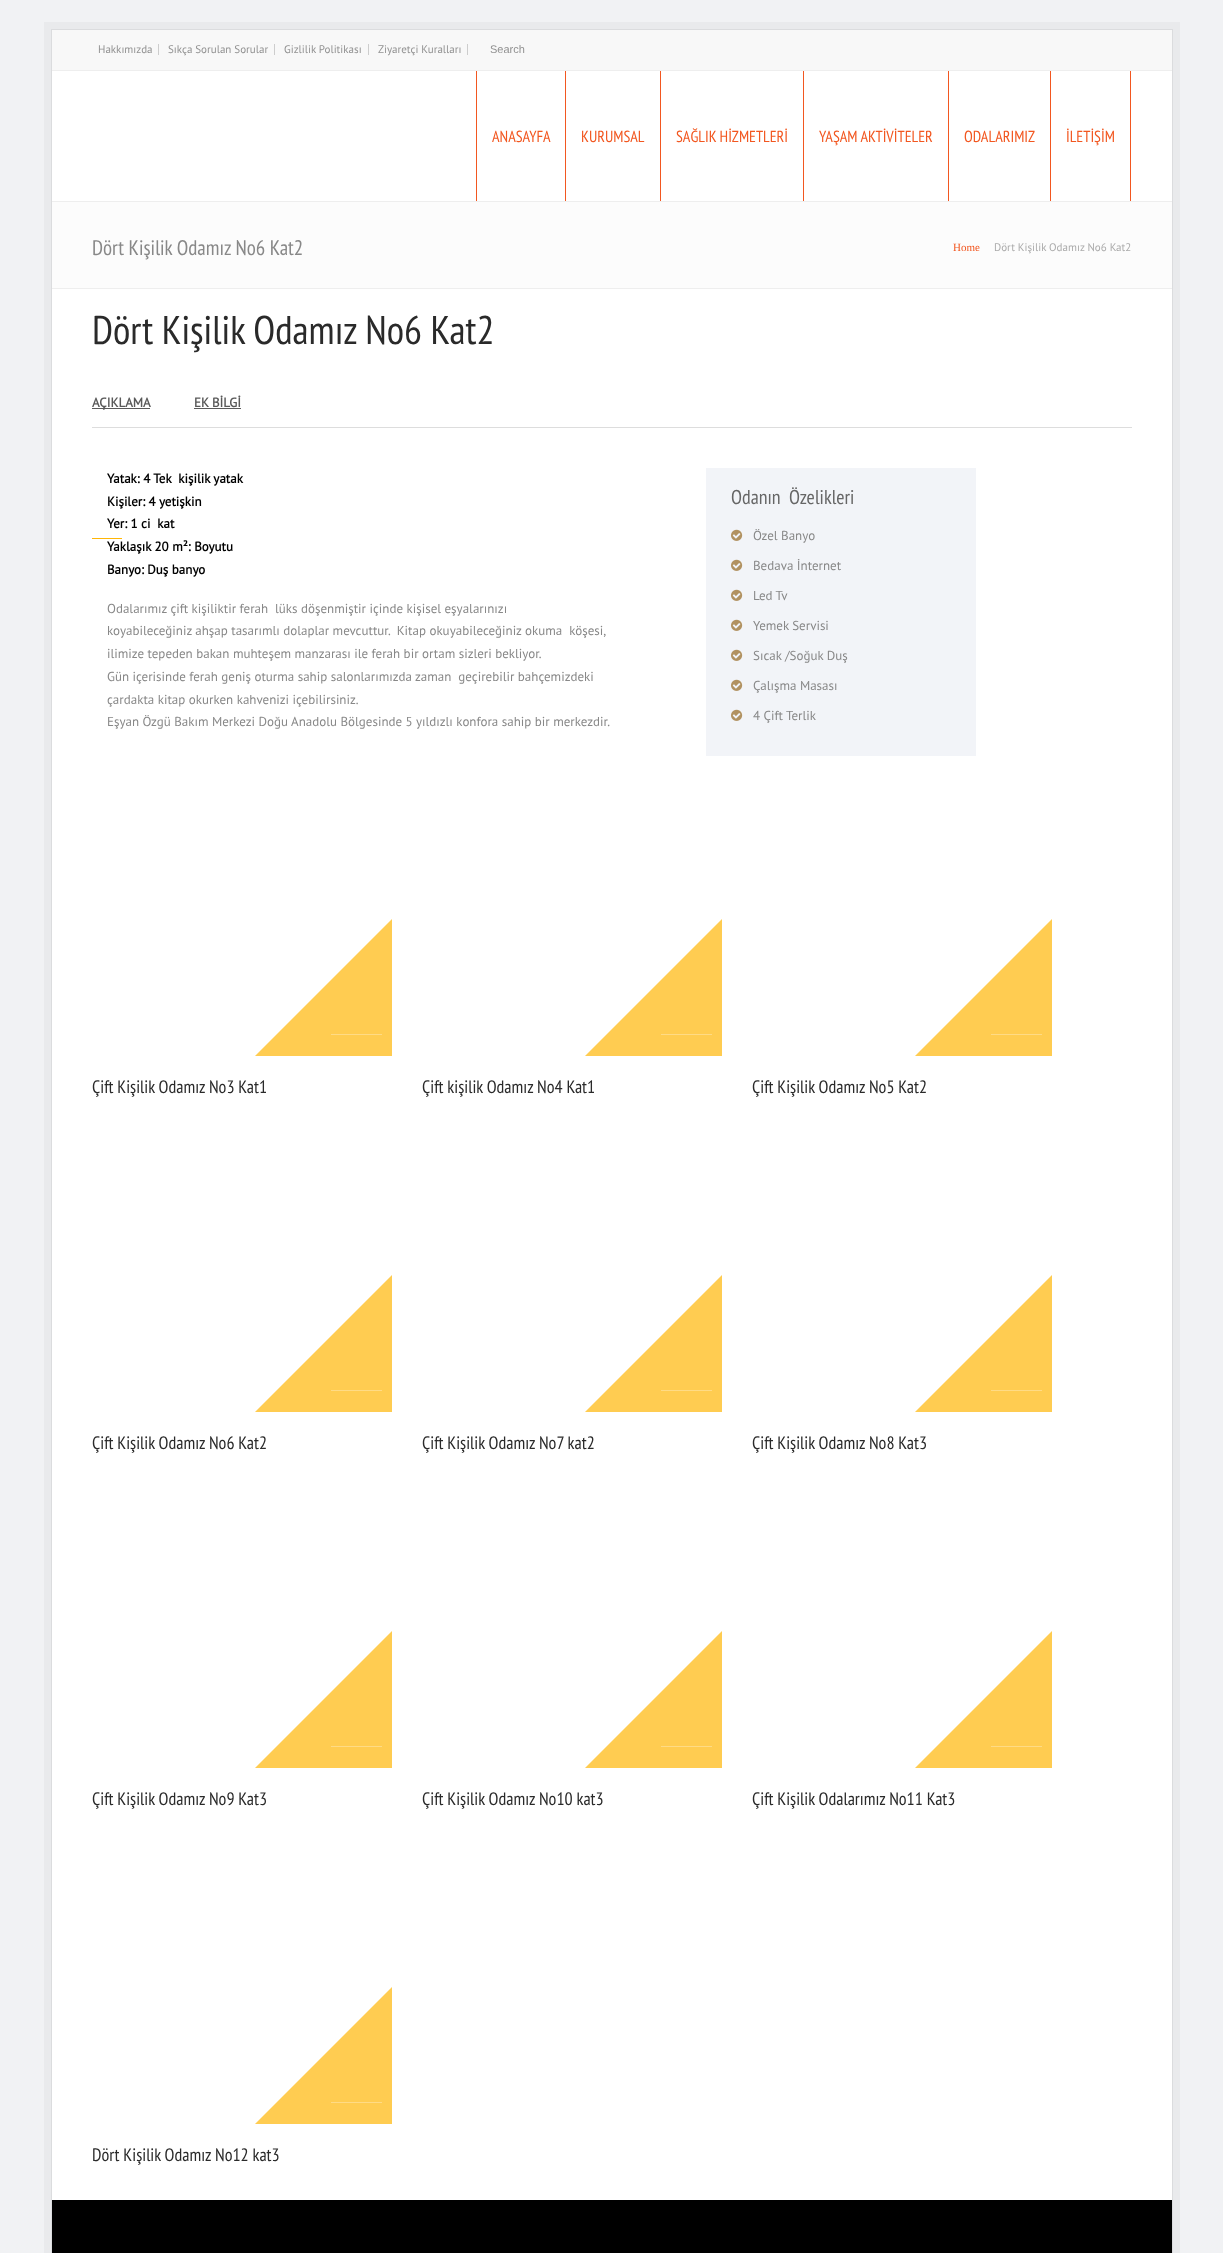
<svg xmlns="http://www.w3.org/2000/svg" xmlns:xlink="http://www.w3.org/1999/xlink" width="1223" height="2253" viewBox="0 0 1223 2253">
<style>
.cls-1{font:11px PT Sans;fill:#919191}
.cls-2{font:11px Liberation Sans;fill:#919191}
.cls-3{font:16px PT Sans Narrow;fill:#f25720}
.cls-4{font:21px PT Sans Narrow;fill:#888888}
.cls-5{font:11px Liberation Serif;fill:#f25720}
.cls-6{font:11px PT Sans;fill:#aaaaaa}
.cls-7{font:40px PT Sans Narrow;fill:#2a2a2a}
.cls-8{font:bold 13px PT Sans;fill:#5a5a5a}
.cls-9{font:bold 13px PT Sans;fill:#000000}
.cls-10{font:13px PT Sans;fill:#888888}
.cls-11{font:20px PT Sans Narrow;fill:#666666}
.cls-12{font:18px PT Sans Narrow;fill:#2a2a2a}
</style>
<rect width="100%" height="100%" fill="#f1f2f4"/>
<rect fill="none" stroke="#e3e4e6" x="51.5" y="29.5" width="1121" height="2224"/>
<rect fill="none" stroke="#000000" stroke-opacity="0.03" stroke-width="8" x="48" y="26" width="1128" height="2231"/>
<rect fill="#f8f8f8" x="52" y="30" width="1120" height="40"/>
<rect fill="#eeeeee" x="52" y="70" width="1120" height="1"/>
<rect fill="#cdcdcd" x="158" y="44" width="1" height="11"/>
<rect fill="#cdcdcd" x="274" y="44" width="1" height="11"/>
<rect fill="#cdcdcd" x="368" y="44" width="1" height="11"/>
<rect fill="#cdcdcd" x="467" y="44" width="1" height="11"/>
<rect fill="#ffffff" x="52" y="71" width="1120" height="130"/>
<rect fill="#f25720" x="565" y="71" width="1" height="130"/>
<rect fill="#f25720" x="476" y="71" width="1" height="130"/>
<rect fill="#f25720" x="660" y="71" width="1" height="130"/>
<rect fill="#f25720" x="803" y="71" width="1" height="130"/>
<rect fill="#f25720" x="948" y="71" width="1" height="130"/>
<rect fill="#f25720" x="1050" y="71" width="1" height="130"/>
<rect fill="#f25720" x="1130" y="71" width="1" height="130"/>
<rect fill="#fcfcfc" x="52" y="202" width="1120" height="86"/>
<rect fill="#eeeeee" x="52" y="201" width="1120" height="1"/>
<rect fill="#eeeeee" x="52" y="288" width="1120" height="1"/>
<rect fill="#ffffff" x="52" y="289" width="1120" height="1911"/>
<rect fill="#dddddd" x="92" y="427" width="1040" height="1"/>
<rect fill="#5a5a5a" x="92" y="408" width="58" height="1"/>
<rect fill="#5a5a5a" x="194" y="408" width="47" height="1"/>
<rect fill="#f2f4f8" x="706" y="468" width="270" height="288"/>
<image xlink:href="image0.png" x="731" y="529" width="12" height="12"/>
<image xlink:href="image0.png" x="731" y="559" width="12" height="12"/>
<image xlink:href="image0.png" x="731" y="589" width="12" height="12"/>
<image xlink:href="image0.png" x="731" y="619" width="12" height="12"/>
<image xlink:href="image0.png" x="731" y="649" width="12" height="12"/>
<image xlink:href="image0.png" x="731" y="679" width="12" height="12"/>
<image xlink:href="image0.png" x="731" y="709" width="12" height="12"/>
<rect fill="#ffb606" x="92" y="538" width="30" height="1"/>
<path fill="#ffcc51" d="M392 1056H255L392 919Z"/>
<rect fill="#ffdb85" x="331" y="1034" width="51" height="1"/>
<path fill="#ffcc51" d="M722 1056H585L722 919Z"/>
<rect fill="#ffdb85" x="661" y="1034" width="51" height="1"/>
<path fill="#ffcc51" d="M1052 1056H915L1052 919Z"/>
<rect fill="#ffdb85" x="991" y="1034" width="51" height="1"/>
<path fill="#ffcc51" d="M392 1412H255L392 1275Z"/>
<rect fill="#ffdb85" x="331" y="1390" width="51" height="1"/>
<path fill="#ffcc51" d="M722 1412H585L722 1275Z"/>
<rect fill="#ffdb85" x="661" y="1390" width="51" height="1"/>
<path fill="#ffcc51" d="M1052 1412H915L1052 1275Z"/>
<rect fill="#ffdb85" x="991" y="1390" width="51" height="1"/>
<path fill="#ffcc51" d="M392 1768H255L392 1631Z"/>
<rect fill="#ffdb85" x="331" y="1746" width="51" height="1"/>
<path fill="#ffcc51" d="M722 1768H585L722 1631Z"/>
<rect fill="#ffdb85" x="661" y="1746" width="51" height="1"/>
<path fill="#ffcc51" d="M1052 1768H915L1052 1631Z"/>
<rect fill="#ffdb85" x="991" y="1746" width="51" height="1"/>
<path fill="#ffcc51" d="M392 2124H255L392 1987Z"/>
<rect fill="#ffdb85" x="331" y="2102" width="51" height="1"/>
<rect fill="#000000" x="52" y="2200" width="1120" height="53"/>
<text class="cls-1" x="98" y="53">Hakkımızda</text>
<text class="cls-1" x="168" y="53">Sıkça Sorulan Sorular</text>
<text class="cls-1" x="284" y="53">Gizlilik Politikası</text>
<text class="cls-1" x="378" y="53">Ziyaretçi Kuralları</text>
<text class="cls-2" x="490" y="53">Search</text>
<text class="cls-3" x="492" y="142">ANASAYFA</text>
<text class="cls-3" x="581" y="142">KURUMSAL</text>
<text class="cls-3" x="676" y="142">SAĞLIK HİZMETLERİ</text>
<text class="cls-3" x="819" y="142">YAŞAM AKTİVİTELER</text>
<text class="cls-3" x="964" y="142">ODALARIMIZ</text>
<text class="cls-3" x="1066" y="142">İLETİŞİM</text>
<text class="cls-4" x="92" y="255">Dört Kişilik Odamız No6 Kat2</text>
<text class="cls-5" x="953" y="251">Home</text>
<text class="cls-6" x="994" y="251">Dört Kişilik Odamız No6 Kat2</text>
<text class="cls-7" x="92" y="344">Dört Kişilik Odamız No6 Kat2</text>
<text class="cls-8" x="92" y="407">AÇIKLAMA</text>
<text class="cls-8" x="194" y="407">EK BİLGİ</text>
<text class="cls-9" xml:space="preserve"><tspan x="107" y="483">Yatak: 4 Tek  kişilik yatak</tspan><tspan x="107" y="506">Kişiler: 4 yetişkin</tspan><tspan x="107" y="528">Yer: 1 ci  kat</tspan><tspan x="107" y="551">Yaklaşık 20 m²: Boyutu</tspan><tspan x="107" y="574">Banyo: Duş banyo</tspan></text>
<text class="cls-10" xml:space="preserve"><tspan x="107" y="613">Odalarımız çift kişiliktir ferah  lüks döşenmiştir içinde kişisel eşyalarınızı</tspan><tspan x="107" y="635">koyabileceğiniz ahşap tasarımlı dolaplar mevcuttur.  Kitap okuyabileceğiniz okuma  köşesi,</tspan><tspan x="107" y="658">ilimize tepeden bakan muhteşem manzarası ile ferah bir ortam sizleri bekliyor.</tspan><tspan x="107" y="681">Gün içerisinde ferah geniş oturma sahip salonlarımızda zaman  geçirebilir bahçemizdeki</tspan><tspan x="107" y="704">çardakta kitap okurken kahvenizi içebilirsiniz.</tspan><tspan x="107" y="726">Eşyan Özgü Bakım Merkezi Doğu Anadolu Bölgesinde 5 yıldızlı konfora sahip bir merkezdir.</tspan></text>
<text class="cls-11" xml:space="preserve" x="731" y="504">Odanın  Özelikleri</text>
<text class="cls-10" x="753" y="540">Özel Banyo</text>
<text class="cls-10" x="753" y="570">Bedava İnternet</text>
<text class="cls-10" x="753" y="600">Led Tv</text>
<text class="cls-10" x="753" y="630">Yemek Servisi</text>
<text class="cls-10" x="753" y="660">Sıcak /Soğuk Duş</text>
<text class="cls-10" x="753" y="690">Çalışma Masası</text>
<text class="cls-10" x="753" y="720">4 Çift Terlik</text>
<text class="cls-12" x="92" y="1093">Çift Kişilik Odamız No3 Kat1</text>
<text class="cls-12" x="422" y="1093">Çift kişilik Odamız No4 Kat1</text>
<text class="cls-12" x="752" y="1093">Çift Kişilik Odamız No5 Kat2</text>
<text class="cls-12" x="92" y="1449">Çift Kişilik Odamız No6 Kat2</text>
<text class="cls-12" x="422" y="1449">Çift Kişilik Odamız No7 kat2</text>
<text class="cls-12" x="752" y="1449">Çift Kişilik Odamız No8 Kat3</text>
<text class="cls-12" x="92" y="1805">Çift Kişilik Odamız No9 Kat3</text>
<text class="cls-12" x="422" y="1805">Çift Kişilik Odamız No10 kat3</text>
<text class="cls-12" x="752" y="1805">Çift Kişilik Odalarımız No11 Kat3</text>
<text class="cls-12" x="92" y="2161">Dört Kişilik Odamız No12 kat3</text>
</svg>
